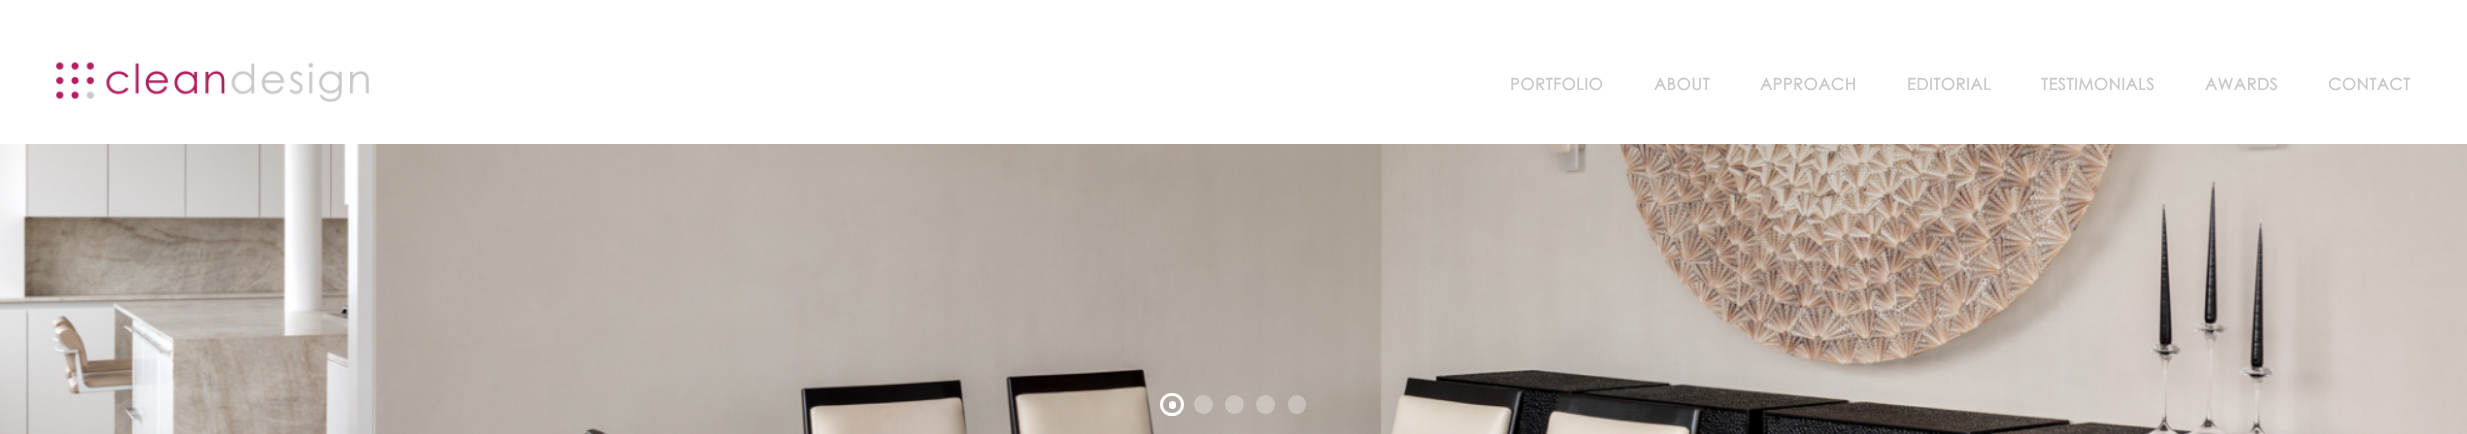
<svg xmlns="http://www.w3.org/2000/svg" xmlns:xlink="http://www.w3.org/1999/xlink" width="2467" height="434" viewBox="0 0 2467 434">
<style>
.cls-1{font:bold 16.25px Century Gothic;letter-spacing:0.6px;fill:#c7c8ca}
</style>
<rect width="100%" height="100%" fill="#ffffff"/>
<image xlink:href="image0.png" x="56" y="62" width="313" height="40"/>
<image xlink:href="image1.png" x="0" y="144" width="2467" height="290"/>
<rect fill="none" stroke="#ffffff" stroke-width="3" x="1161.5" y="394.5" width="21" height="20" rx="10"/>
<rect fill="#ffffff" x="1169" y="401" width="7" height="8" rx="3.5"/>
<circle fill="#ffffff" fill-opacity="0.3" cx="1203.5" cy="404.5" r="9.5"/>
<circle fill="#ffffff" fill-opacity="0.3" cx="1234.5" cy="404.5" r="9.5"/>
<circle fill="#ffffff" fill-opacity="0.3" cx="1265.5" cy="404.5" r="9.5"/>
<rect fill="#ffffff" fill-opacity="0.3" x="1288" y="395" width="18" height="19" rx="9"/>
<text class="cls-1" x="1510" y="90">PORTFOLIO</text>
<text class="cls-1" x="1654" y="90">ABOUT</text>
<text class="cls-1" x="1760" y="90">APPROACH</text>
<text class="cls-1" x="1907" y="90">EDITORIAL</text>
<text class="cls-1" x="2041" y="90">TESTIMONIALS</text>
<text class="cls-1" x="2205" y="90">AWARDS</text>
<text class="cls-1" x="2328" y="90">CONTACT</text>
</svg>
